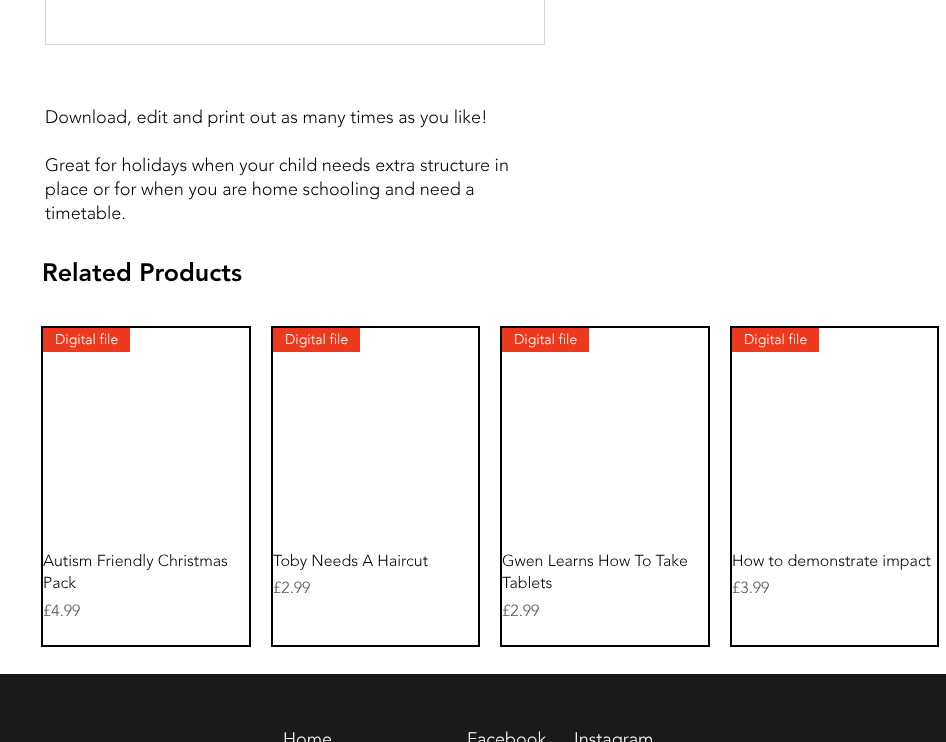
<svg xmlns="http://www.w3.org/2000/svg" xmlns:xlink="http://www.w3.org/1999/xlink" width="946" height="742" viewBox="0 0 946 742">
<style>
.cls-1{font:300 18px 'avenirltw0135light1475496';fill:#000000}
.cls-2{font:900 25px 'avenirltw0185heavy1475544';fill:#000000}
.cls-3{font:300 14px 'avenirltw0135light1475496';fill:#ffffff}
.cls-4{font:300 16px 'avenirltw0135light1475496';fill:#000000}
.cls-5{font:300 16px 'avenirltw0135light1475496';fill:#555555}
.cls-6{font:300 18px 'avenirltw0135light1475496';fill:#ffffff}
</style>
<rect width="100%" height="100%" fill="#ffffff"/>
<rect fill="none" stroke="#d9d9d9" x="45.5" y="-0.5" width="499" height="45"/>
<rect fill="none" stroke="#000000" stroke-width="2" x="42" y="327" width="208" height="319"/>
<rect fill="#ed3a1e" x="43" y="328" width="87" height="24"/>
<rect fill="none" stroke="#000000" stroke-width="2" x="272" y="327" width="207" height="319"/>
<rect fill="#ed3a1e" x="273" y="328" width="87" height="24"/>
<rect fill="none" stroke="#000000" stroke-width="2" x="501" y="327" width="208" height="319"/>
<rect fill="#ed3a1e" x="502" y="328" width="87" height="24"/>
<rect fill="none" stroke="#000000" stroke-width="2" x="731" y="327" width="207" height="319"/>
<rect fill="#ed3a1e" x="732" y="328" width="87" height="24"/>
<rect fill="#1a1a1a" x="0" y="674" width="946" height="68"/>
<text class="cls-1" x="45" y="123">Download, edit and print out as many times as you like!</text>
<text class="cls-1"><tspan x="45" y="171">Great for holidays when your child needs extra structure in</tspan><tspan x="45" y="195">place or for when you are home schooling and need a</tspan><tspan x="45" y="219">timetable.</tspan></text>
<text class="cls-2" x="42" y="281">Related Products</text>
<text class="cls-3" x="55" y="344">Digital file</text>
<text class="cls-4"><tspan x="43" y="566">Autism Friendly Christmas</tspan><tspan x="43" y="588">Pack</tspan></text>
<text class="cls-5" x="43" y="616">£4.99</text>
<text class="cls-3" x="285" y="344">Digital file</text>
<text class="cls-4" x="273" y="566">Toby Needs A Haircut</text>
<text class="cls-5" x="273" y="593">£2.99</text>
<text class="cls-3" x="514" y="344">Digital file</text>
<text class="cls-4"><tspan x="502" y="566">Gwen Learns How To Take</tspan><tspan x="502" y="588">Tablets</tspan></text>
<text class="cls-5" x="502" y="616">£2.99</text>
<text class="cls-3" x="744" y="344">Digital file</text>
<text class="cls-4" x="732" y="566">How to demonstrate impact</text>
<text class="cls-5" x="732" y="593">£3.99</text>
<text class="cls-6" x="283" y="745">Home</text>
<text class="cls-6" x="467" y="745">Facebook</text>
<text class="cls-6" x="574" y="745">Instagram</text>
</svg>
